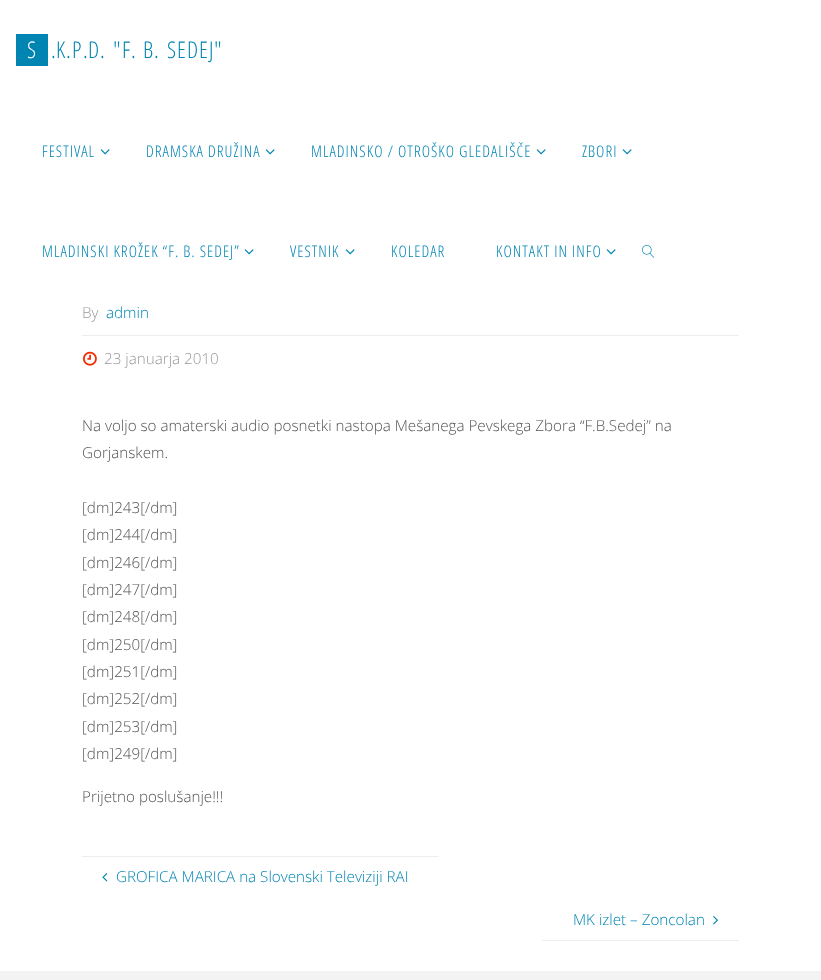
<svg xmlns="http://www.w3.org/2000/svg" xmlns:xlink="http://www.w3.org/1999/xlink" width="821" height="980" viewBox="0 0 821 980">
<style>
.cls-1{font:300 23px Open Sans Condensed;fill:#ffffff}
.cls-2{font:300 23px Open Sans Condensed;fill:#0085b2}
.cls-3{font:300 16px Open Sans Condensed;letter-spacing:1px;fill:#0085b2}
.cls-4{font:300 15.2px Open Sans;fill:#9a9a9a}
.cls-5{font:300 15.2px Open Sans;fill:#0085b2}
.cls-6{font:300 15.2px Open Sans;fill:#555555}
</style>
<rect width="100%" height="100%" fill="#f3f3f3"/>
<rect fill="#ffffff" x="0" y="0" width="821" height="971"/>
<rect fill="#0085b2" x="16" y="34" width="32" height="32"/>
<image xlink:href="image0.png" x="100" y="149" width="10" height="6"/>
<image xlink:href="image0.png" x="265" y="149" width="10" height="6"/>
<image xlink:href="image0.png" x="536" y="149" width="10" height="6"/>
<image xlink:href="image0.png" x="622" y="149" width="10" height="6"/>
<image xlink:href="image0.png" x="244" y="249" width="10" height="6"/>
<image xlink:href="image0.png" x="345" y="249" width="10" height="6"/>
<image xlink:href="image0.png" x="606" y="249" width="10" height="6"/>
<image xlink:href="image1.png" x="642" y="245" width="13" height="13"/>
<rect fill="#eeeeee" x="82" y="335" width="657" height="1"/>
<image xlink:href="image2.png" x="83" y="351" width="14" height="15"/>
<rect fill="#eeeeee" x="82" y="856" width="357" height="1"/>
<image xlink:href="image3.png" x="102" y="873" width="6" height="9"/>
<image xlink:href="image4.png" x="713" y="916" width="5" height="9"/>
<rect fill="#eeeeee" x="542" y="940" width="197" height="1"/>
<text class="cls-1" x="27" y="58">S</text>
<text class="cls-2" x="56" y="58">K</text>
<text class="cls-2" x="72" y="58">P</text>
<text class="cls-2" x="88" y="58">D</text>
<text class="cls-2" x="113" y="58">"</text>
<text class="cls-2" x="122" y="58">F</text>
<text class="cls-2" x="143" y="58">B</text>
<text class="cls-2" x="167" y="58">S</text>
<text class="cls-2" x="177" y="58">E</text>
<text class="cls-2" x="187" y="58">D</text>
<text class="cls-2" x="199" y="58">E</text>
<text class="cls-2" x="209" y="58">J</text>
<text class="cls-2" x="214" y="58">"</text>
<text class="cls-2" x="51" y="58">.</text>
<text class="cls-2" x="66" y="58">.</text>
<text class="cls-2" x="83" y="58">.</text>
<text class="cls-2" x="100" y="58">.</text>
<text class="cls-2" x="131" y="58">.</text>
<text class="cls-2" x="154" y="58">.</text>
<text class="cls-3" x="42" y="157">FESTIVAL</text>
<text class="cls-3" x="146" y="157">DRAMSKA DRUŽINA</text>
<text class="cls-3" x="311" y="157">MLADINSKO / OTROŠKO GLEDALIŠČE</text>
<text class="cls-3" x="582" y="157">ZBORI</text>
<text class="cls-3" x="42" y="257">MLADINSKI KROŽEK “F. B. SEDEJ”</text>
<text class="cls-3" x="290" y="257">VESTNIK</text>
<text class="cls-3" x="391" y="257">KOLEDAR</text>
<text class="cls-3" x="496" y="257">KONTAKT IN INFO</text>
<text class="cls-4" x="82" y="318">By</text>
<text class="cls-5" x="106" y="318">admin</text>
<text class="cls-4" x="104" y="364">23 januarja 2010</text>
<text class="cls-6"><tspan x="82" y="431">Na voljo so amaterski audio posnetki nastopa Mešanega Pevskega Zbora “F.B.Sedej” na</tspan><tspan x="82" y="458">Gorjanskem.</tspan></text>
<text class="cls-6"><tspan x="82" y="513">[dm]243[/dm]</tspan><tspan x="82" y="540">[dm]244[/dm]</tspan><tspan x="82" y="568">[dm]246[/dm]</tspan><tspan x="82" y="595">[dm]247[/dm]</tspan><tspan x="82" y="622">[dm]248[/dm]</tspan><tspan x="82" y="650">[dm]250[/dm]</tspan><tspan x="82" y="677">[dm]251[/dm]</tspan><tspan x="82" y="704">[dm]252[/dm]</tspan><tspan x="82" y="732">[dm]253[/dm]</tspan><tspan x="82" y="759">[dm]249[/dm]</tspan></text>
<text class="cls-6" x="82" y="802">Prijetno poslušanje!!!</text>
<text class="cls-5" x="116" y="882">GROFICA MARICA na Slovenski Televiziji RAI</text>
<text class="cls-5" x="573" y="925">MK izlet – Zoncolan</text>
</svg>
